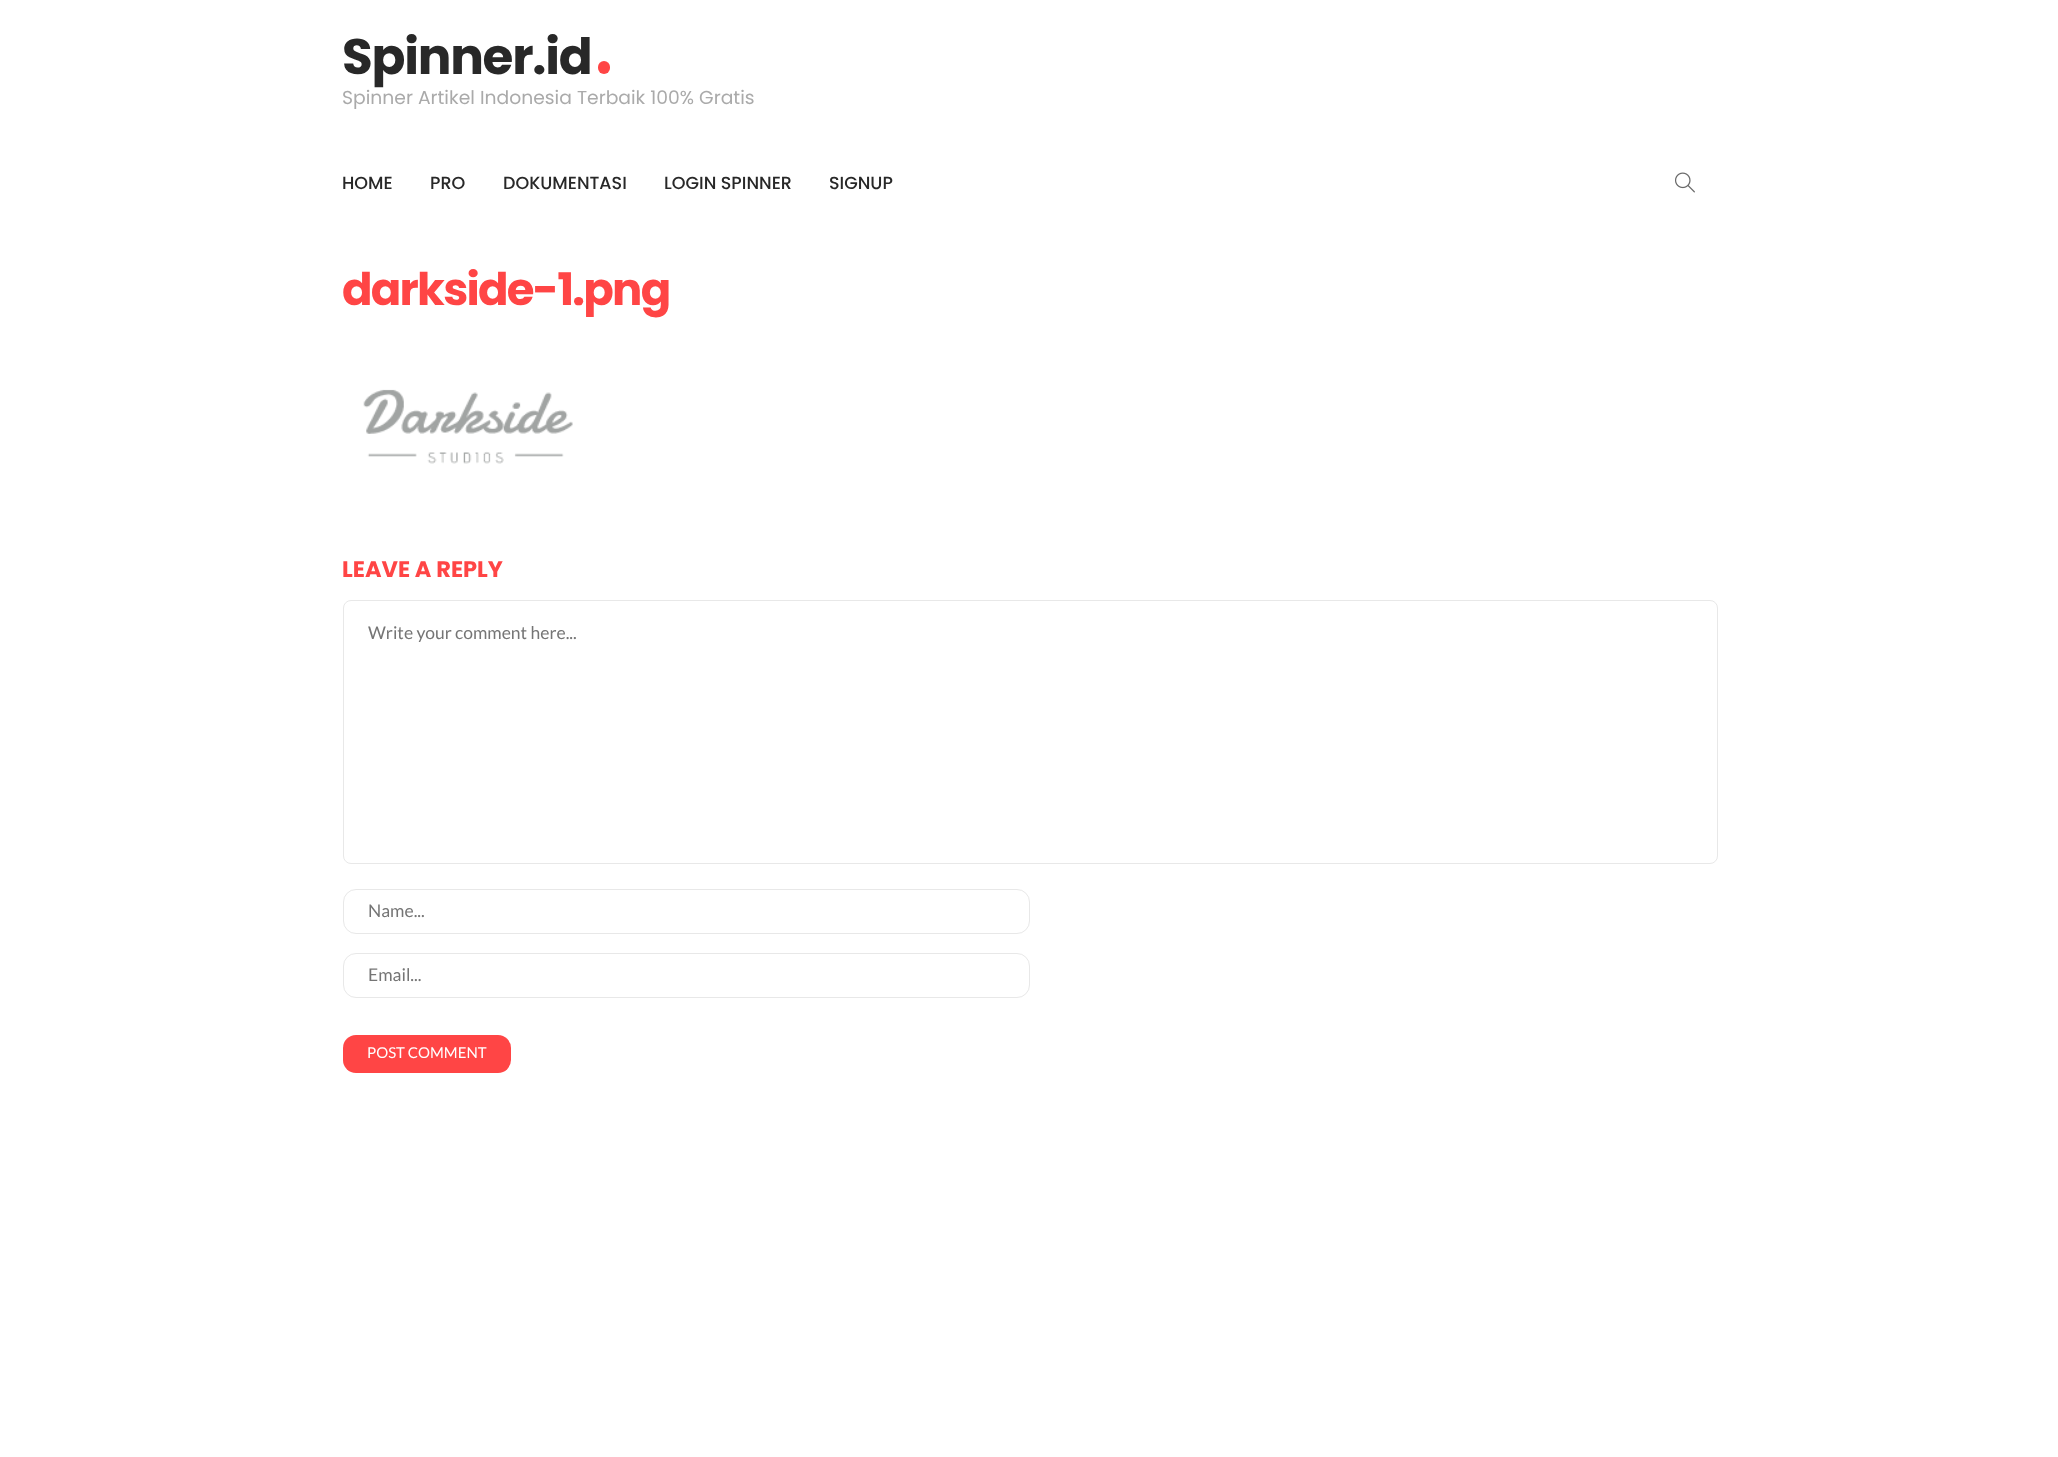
<svg xmlns="http://www.w3.org/2000/svg" xmlns:xlink="http://www.w3.org/1999/xlink" width="2058" height="1457" viewBox="0 0 2058 1457">
<style>
.cls-1{font:bold 50px Poppins;letter-spacing:-1.25px;fill:#282828}
.cls-2{font:18.75px Poppins;fill:#aaaaaa}
.cls-3{font:500 17.5px Poppins;fill:#282828}
.cls-4{font:bold 45px Poppins;letter-spacing:-1.75px;fill:#ff4545}
.cls-5{font:bold 22.5px Poppins;fill:#ff4545}
.cls-6{font:17.5px Lato;fill:#757575}
.cls-7{font:15px Lato;fill:#ffffff}
</style>
<rect width="100%" height="100%" fill="#ffffff"/>
<rect fill="#ff4545" x="598" y="61" width="12" height="13" rx="6"/>
<image xlink:href="image0.png" x="1675" y="172" width="20" height="21"/>
<image xlink:href="image1.png" x="363" y="389" width="210" height="75"/>
<rect fill="none" stroke="#e8e8e8" x="343.5" y="600.5" width="1374" height="263" rx="7.5"/>
<rect fill="none" stroke="#e8e8e8" x="343.5" y="889.5" width="686" height="44" rx="12.5"/>
<rect fill="none" stroke="#e8e8e8" x="343.5" y="953.5" width="686" height="44" rx="12.5"/>
<rect fill="#ff4545" x="343" y="1035" width="168" height="38" rx="13"/>
<text class="cls-1" x="342" y="74">Spinner.id</text>
<text class="cls-2" x="342" y="104">Spinner Artikel Indonesia Terbaik 100% Gratis</text>
<text class="cls-3" x="342" y="189">HOME</text>
<text class="cls-3" x="430" y="189">PRO</text>
<text class="cls-3" x="503" y="189">DOKUMENTASI</text>
<text class="cls-3" x="664" y="189">LOGIN SPINNER</text>
<text class="cls-3" x="829" y="189">SIGNUP</text>
<text class="cls-4" x="342" y="305">darkside-1.png</text>
<text class="cls-5" x="342" y="577">LEAVE A REPLY</text>
<text class="cls-6" x="368" y="639">Write your comment here...</text>
<text class="cls-6" x="368" y="917">Name...</text>
<text class="cls-6" x="368" y="981">Email...</text>
<text class="cls-7" x="367" y="1058">POST COMMENT</text>
</svg>
